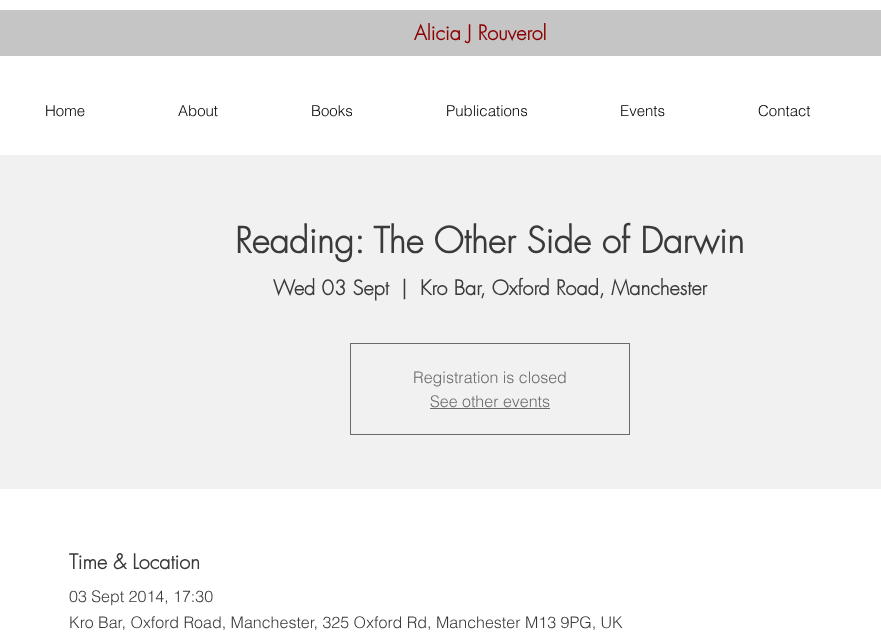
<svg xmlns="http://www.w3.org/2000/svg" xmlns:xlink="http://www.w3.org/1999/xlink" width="881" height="640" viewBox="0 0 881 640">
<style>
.cls-1{font:bold 20px futura;fill:#8b0000}
.cls-2{font:300 15px helvetica;fill:#000000}
.cls-3{font:bold 35px futura;fill:#3a3a3a}
.cls-4{font:bold 20px futura;fill:#3a3a3a}
.cls-5{font:300 16px helvetica;fill:#6b6b6b}
.cls-6{font:300 16px helvetica;fill:#3a3a3a}
</style>
<rect width="100%" height="100%" fill="#ffffff"/>
<rect fill="#c5c5c5" x="0" y="10" width="881" height="46"/>
<rect fill="#f1f1f1" x="0" y="155" width="881" height="334"/>
<rect fill="none" stroke="#6b6b6b" x="350.5" y="343.5" width="279" height="91"/>
<rect fill="#6b6b6b" x="430" y="408" width="120" height="1"/>
<text class="cls-1" x="414" y="40">Alicia J Rouverol</text>
<text class="cls-2" x="45" y="116">Home</text>
<text class="cls-2" x="178" y="116">About</text>
<text class="cls-2" x="311" y="116">Books</text>
<text class="cls-2" x="446" y="116">Publications</text>
<text class="cls-2" x="620" y="116">Events</text>
<text class="cls-2" x="758" y="116">Contact</text>
<text class="cls-3" x="235" y="253">Reading: The Other Side of Darwin</text>
<text class="cls-4" x="273" y="295">Wed 03 Sept</text>
<text class="cls-4" x="401" y="295">|</text>
<text class="cls-4" x="420" y="295">Kro Bar, Oxford Road, Manchester</text>
<text class="cls-5" x="413" y="383">Registration is closed</text>
<text class="cls-5" x="430" y="407">See other events</text>
<text class="cls-4" x="69" y="569">Time &amp; Location</text>
<text class="cls-6"><tspan x="69" y="602">03 Sept 2014, 17:30</tspan><tspan x="69" y="628">Kro Bar, Oxford Road, Manchester, 325 Oxford Rd, Manchester M13 9PG, UK</tspan></text>
</svg>
